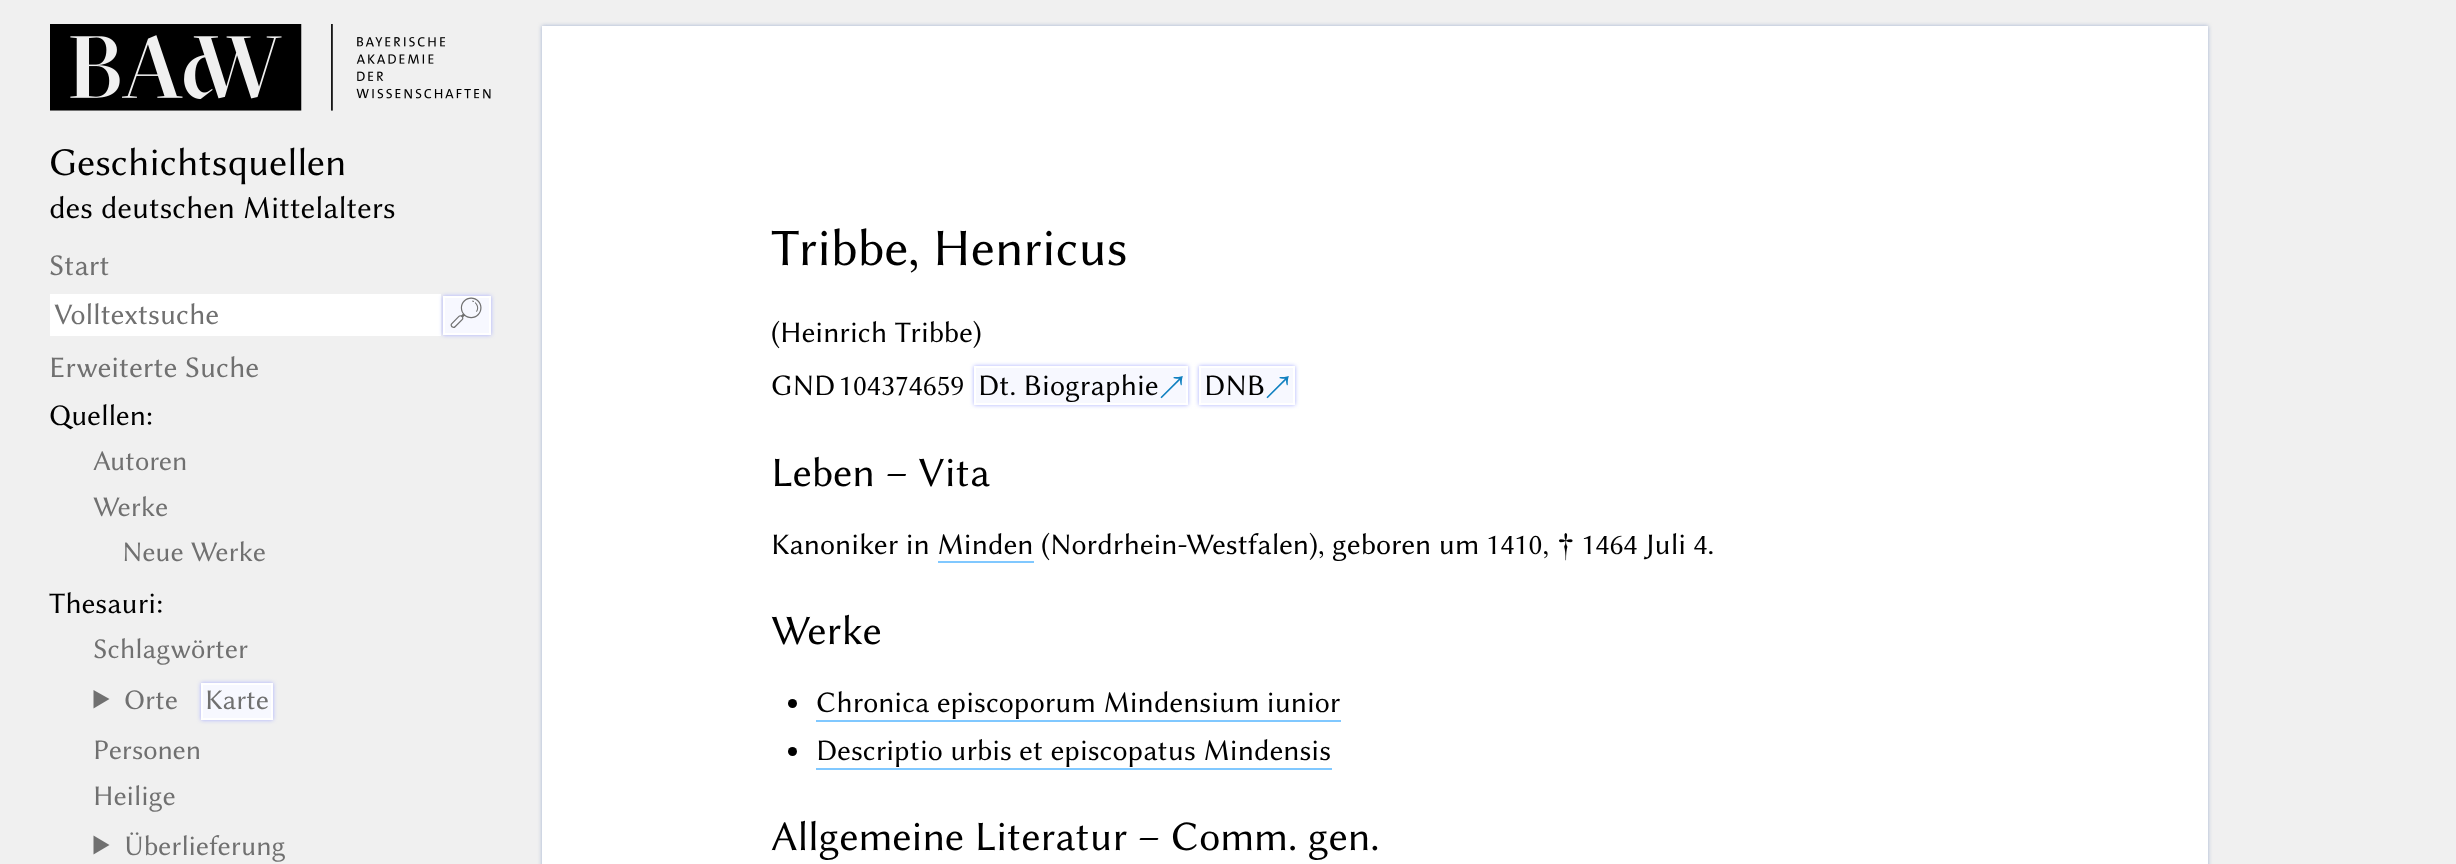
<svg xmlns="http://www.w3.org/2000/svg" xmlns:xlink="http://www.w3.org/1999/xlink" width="2456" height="864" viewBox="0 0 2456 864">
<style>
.cls-1{font:39.5px Libertinus Sans;fill:#000000}
.cls-2{font:31.75px Libertinus Sans;fill:#000000}
.cls-3{font:30px Libertinus Sans;fill:#707070}
.cls-4{font:30px Noto Emoji;fill:#707070}
.cls-5{font:30px Libertinus Sans;fill:#000000}
.cls-6{font:28.5px Libertinus Sans;fill:#707070}
.cls-7{font:52.75px Libertinus Sans;fill:#000000}
.cls-8{font:30px Libertinus Sans;fill:#1080c0}
.cls-9{font:42px Libertinus Sans;fill:#000000}
</style>
<rect width="100%" height="100%" fill="#f0f0f0"/>
<image xlink:href="image0.png" x="50" y="24" width="441" height="87"/>
<rect fill="#ffffff" x="50" y="294" width="391" height="42"/>
<rect fill="#aaafff" filter="blur(2px)" x="443" y="296" width="48" height="39"/>
<rect fill="#f7f8ff" stroke="#ffffff" stroke-width="2" x="444" y="297" width="46" height="37"/>
<path fill="#707070" d="M93.5 690L109.5 699L93.5 708.5Z"/>
<rect fill="#aaafff" filter="blur(2px)" x="201" y="683" width="72" height="37"/>
<rect fill="#f7f8ff" stroke="#ffffff" stroke-width="2" x="202" y="684" width="70" height="35"/>
<path fill="#707070" d="M93.5 835.5L109.5 845L93.5 854.5Z"/>
<rect fill="#a0b0d0" filter="blur(2px)" x="542" y="26" width="1666" height="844"/>
<rect fill="#ffffff" x="542" y="26" width="1666" height="838"/>
<rect fill="#aaafff" filter="blur(2px)" x="974" y="366" width="214" height="39"/>
<rect fill="#f7f8ff" stroke="#ffffff" stroke-width="2" x="975" y="367" width="212" height="37"/>
<rect fill="#aaafff" filter="blur(2px)" x="1199" y="366" width="96" height="39"/>
<rect fill="#f7f8ff" stroke="#ffffff" stroke-width="2" x="1200" y="367" width="94" height="37"/>
<rect fill="#80c8ff" x="938" y="561" width="96" height="2"/>
<circle fill="#000000" cx="792.5" cy="703.5" r="4.5"/>
<rect fill="#80c8ff" x="816" y="720" width="525" height="2"/>
<circle fill="#000000" cx="792.5" cy="751.5" r="4.5"/>
<rect fill="#80c8ff" x="816" y="768" width="516" height="2"/>
<text class="cls-1" x="49" y="175">Geschichtsquellen</text>
<text class="cls-2" x="49" y="218">des deutschen Mittelalters</text>
<text class="cls-3" x="49" y="275">Start</text>
<text class="cls-3" x="54" y="324">Volltextsuche</text>
<text class="cls-4" x="447" y="323">🔎︎</text>
<text class="cls-3" x="49" y="377">Erweiterte Suche</text>
<text class="cls-5" x="49" y="425">Quellen</text>
<text class="cls-5" x="146" y="425">:</text>
<text class="cls-6"><tspan x="93" y="470">Autoren</tspan><tspan x="93" y="516">Werke</tspan></text>
<text class="cls-6" x="122" y="561">Neue Werke</text>
<text class="cls-5" x="49" y="613">Thesauri:</text>
<text class="cls-6" x="93" y="658">Schlagwörter</text>
<text class="cls-6" x="124" y="709">Orte</text>
<text class="cls-6" x="205" y="709">Karte</text>
<text class="cls-6"><tspan x="93" y="759">Personen</tspan><tspan x="93" y="805">Heilige</tspan></text>
<text class="cls-6" x="124" y="855">Überlieferung</text>
<text class="cls-7" x="771" y="265">Tribbe, Henricus</text>
<text class="cls-5"><tspan x="771" y="342">(Heinrich Tribbe)</tspan><tspan x="771" y="395">GND</tspan></text>
<text class="cls-5" x="839" y="395">104374659</text>
<text class="cls-5" x="978" y="395">Dt. Biographie</text>
<text class="cls-8" x="1159" y="395">↗</text>
<text class="cls-5" x="1204" y="395">DNB</text>
<text class="cls-8" x="1265" y="395">↗</text>
<text class="cls-9" x="771" y="486">Leben – Vita</text>
<text class="cls-5" x="771" y="554">Kanoniker in Minden</text>
<text class="cls-5" x="1041" y="554">(Nordrhein-Westfalen), geboren um 1410, † 1464 Juli 4.</text>
<text class="cls-9" x="771" y="644">Werke</text>
<text class="cls-5"><tspan x="816" y="712">Chronica episcoporum Mindensium iunior</tspan><tspan x="816" y="760">Descriptio urbis et episcopatus Mindensis</tspan></text>
<text class="cls-9" x="771" y="850">Allgemeine Literatur – Comm. gen.</text>
</svg>
